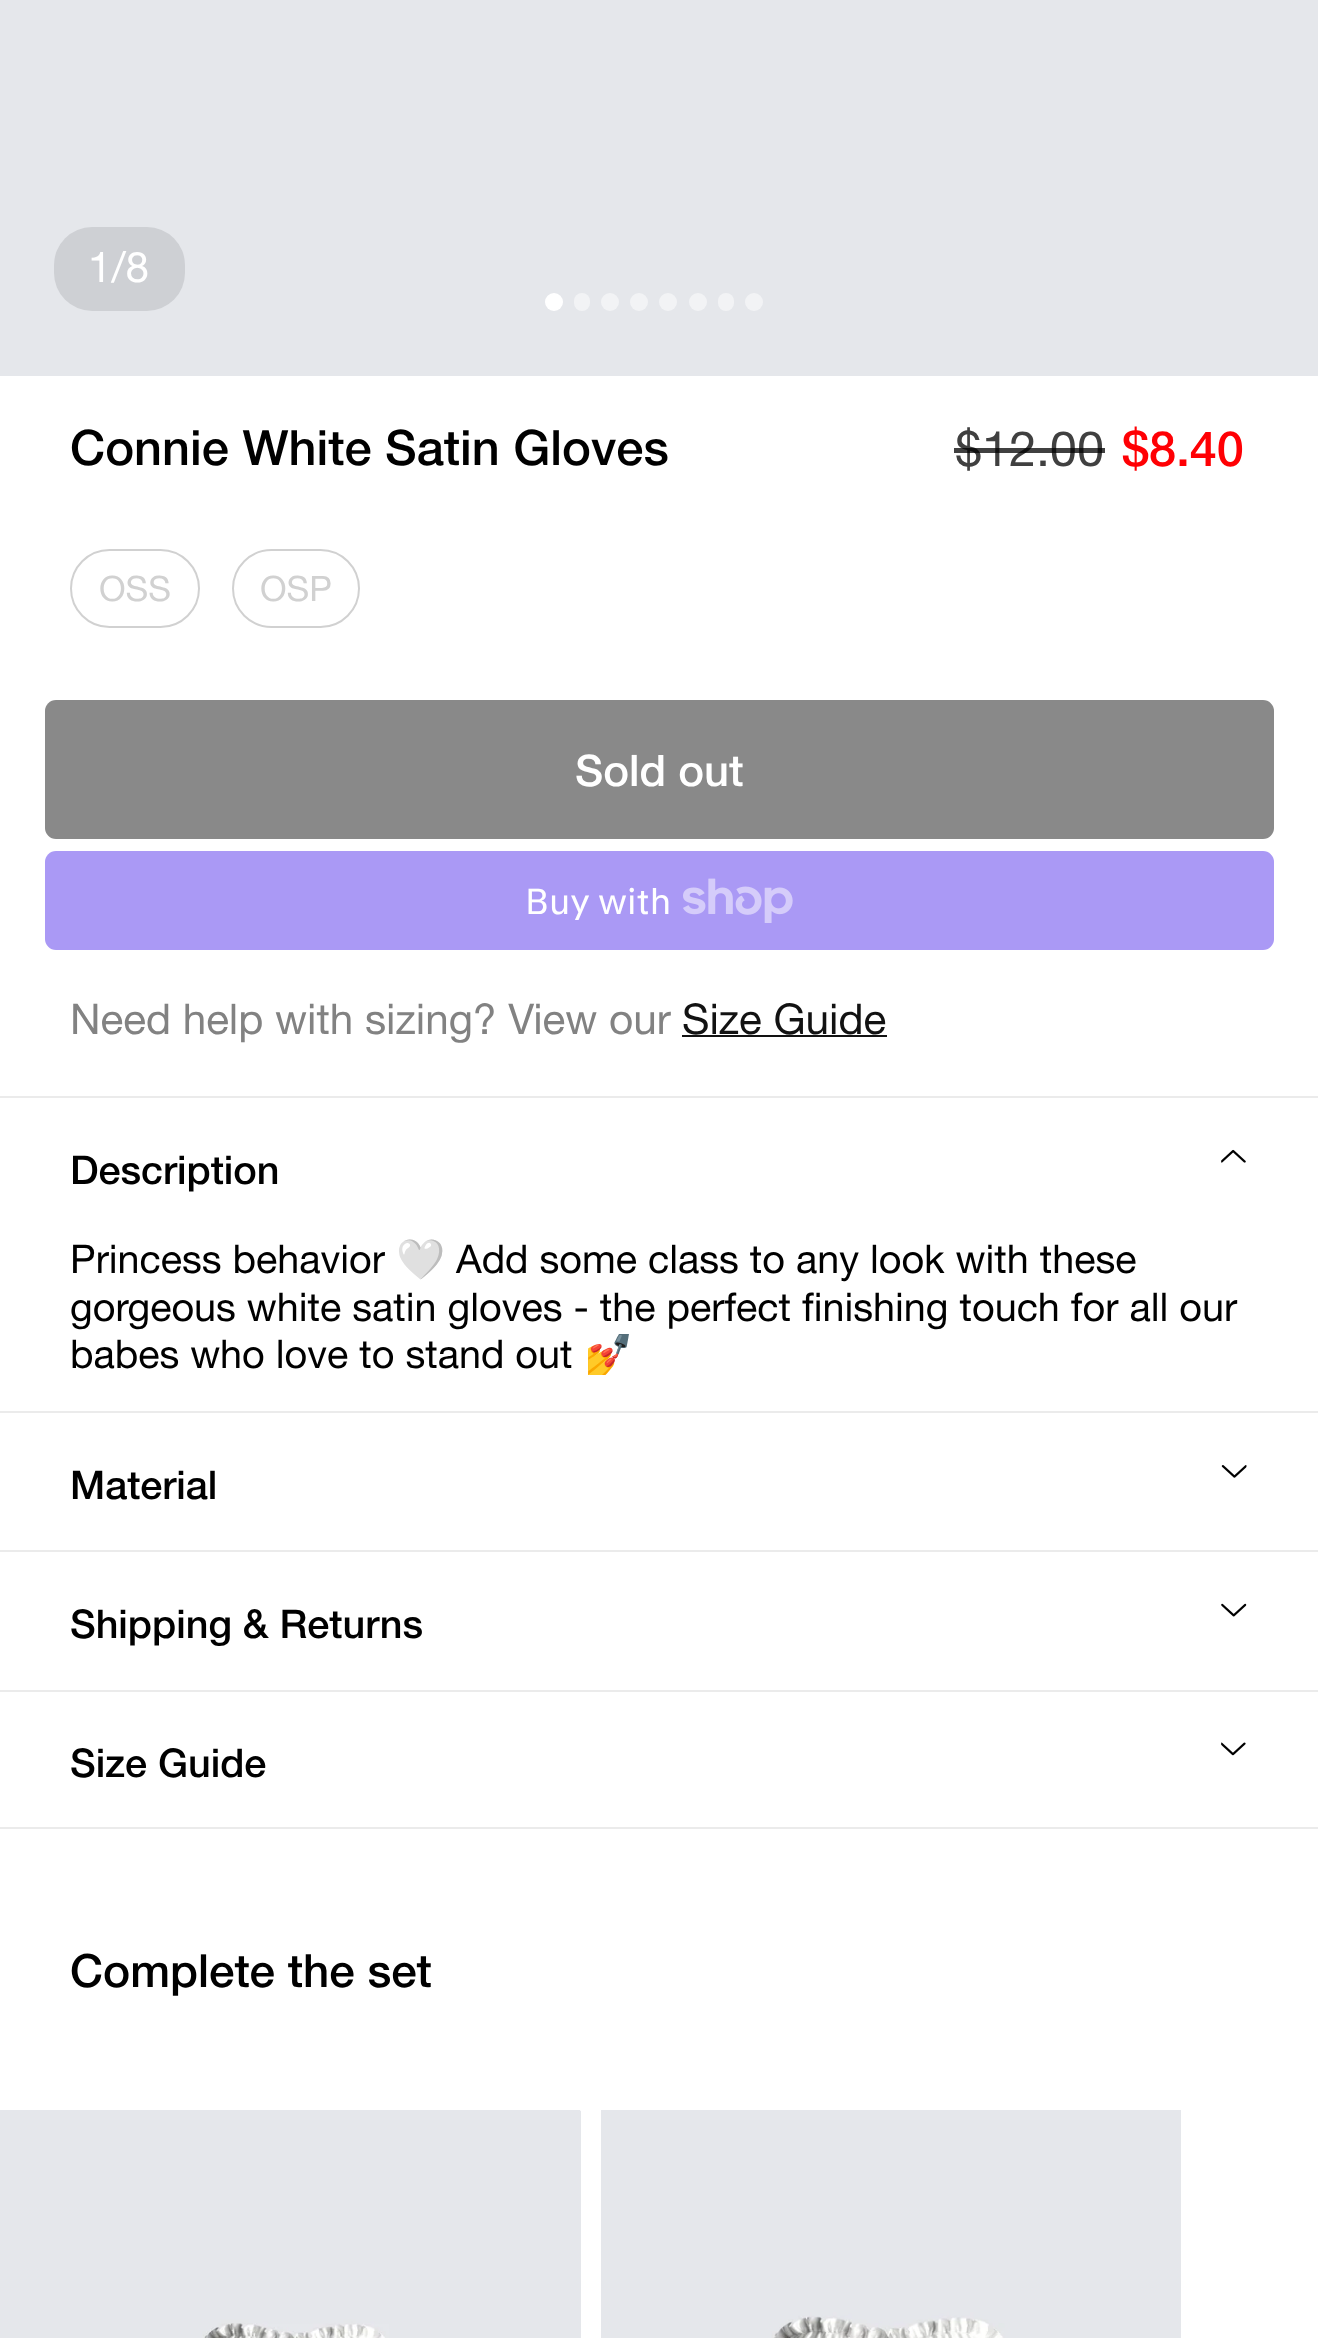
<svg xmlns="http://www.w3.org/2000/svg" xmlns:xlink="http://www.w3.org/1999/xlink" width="1318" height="2338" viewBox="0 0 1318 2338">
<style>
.cls-1{font:42.25px Helvetica Neue;fill:#ffffff}
.cls-2{font:500 48.75px Helvetica Neue;fill:#000000}
.cls-3{font:48.75px Helvetica Neue;fill:#404040}
.cls-4{font:500 48.75px Helvetica Neue;fill:#ff0004}
.cls-5{font:35px Helvetica Neue;fill:#d1d1d1}
.cls-6{font:500 43.5px Helvetica Neue;fill:#ffffff}
.cls-7{font:36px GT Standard;fill:#ffffff}
.cls-8{font:42.25px Helvetica Neue;fill:#828282}
.cls-9{font:42.25px Helvetica Neue;fill:#121212}
.cls-10{font:500 39.55px Helvetica Neue;fill:#000000}
.cls-11{font:39.55px Helvetica Neue;fill:#000000}
.cls-12{font:39.55px Noto Color Emoji;fill:#000000}
.cls-13{font:500 45.75px Helvetica Neue;fill:#000000}
</style>
<rect width="100%" height="100%" fill="#ffffff"/>
<rect fill="#e5e7eb" x="0" y="0" width="1318" height="376"/>
<rect fill="#ced0d4" x="54" y="227" width="131" height="84" rx="38"/>
<circle fill="#ffffff" cx="554" cy="302" r="9"/>
<rect fill="#f2f3f5" x="574" y="293" width="16" height="18" rx="8"/>
<circle fill="#f2f3f5" cx="610" cy="302" r="9"/>
<circle fill="#f2f3f5" cx="639" cy="302" r="9"/>
<circle fill="#f2f3f5" cx="668" cy="302" r="9"/>
<circle fill="#f2f3f5" cx="698" cy="302" r="9"/>
<rect fill="#f2f3f5" x="718" y="293" width="16" height="18" rx="8"/>
<circle fill="#f2f3f5" cx="754" cy="302" r="9"/>
<rect fill="none" stroke="#d1d1d1" stroke-width="2" x="71" y="550" width="128" height="77" rx="38.5"/>
<rect fill="none" stroke="#d1d1d1" stroke-width="2" x="233" y="550" width="126" height="77" rx="38.5"/>
<rect fill="#898989" x="45" y="700" width="1229" height="139" rx="11"/>
<rect fill="#aa99f5" x="45" y="851" width="1229" height="99" rx="11"/>
<image xlink:href="image0.png" x="683" y="878" width="110" height="45"/>
<rect fill="#121212" x="682" y="1035" width="205" height="2"/>
<rect fill="#ebebeb" x="0" y="1096" width="1318" height="2"/>
<rect fill="#ebebeb" x="0" y="1411" width="1318" height="2"/>
<image xlink:href="image1.png" x="1221" y="1149" width="25" height="14"/>
<rect fill="#ebebeb" x="0" y="1550" width="1318" height="2"/>
<image xlink:href="image2.png" x="1221" y="1465" width="26" height="13"/>
<rect fill="#ebebeb" x="0" y="1690" width="1318" height="2"/>
<image xlink:href="image3.png" x="1221" y="1603" width="26" height="14"/>
<rect fill="#ebebeb" x="0" y="1827" width="1318" height="2"/>
<image xlink:href="image4.png" x="1221" y="1742" width="25" height="14"/>
<rect fill="#e5e7eb" x="580" y="2111" width="1" height="227"/>
<image xlink:href="image5.png" x="0" y="2110" width="581" height="228"/>
<image xlink:href="image6.png" x="601" y="2110" width="580" height="228"/>
<text class="cls-1" x="88" y="282">1/8</text>
<text class="cls-2" x="70" y="465">Connie White Satin Gloves</text>
<text class="cls-3" x="955" y="466">$12.00</text>
<rect fill="#000000" fill-opacity="0.75" x="954" y="448" width="151" height="5"/>
<text class="cls-4" x="1122" y="466">$8.40</text>
<text class="cls-5" x="99" y="601">OSS</text>
<text class="cls-5" x="260" y="601">OSP</text>
<text class="cls-6" x="575" y="786">Sold out</text>
<text class="cls-7" x="525" y="914">Buy with</text>
<text class="cls-8" x="70" y="1034">Need help with sizing? View our</text>
<text class="cls-9" x="682" y="1034">Size Guide</text>
<text class="cls-10" x="70" y="1184">Description</text>
<text class="cls-11" x="70" y="1273">Princess behavior</text>
<text class="cls-12" x="396" y="1273">🤍</text>
<text class="cls-11" x="456" y="1273">Add some class to any look with these</text>
<text class="cls-11"><tspan x="70" y="1321">gorgeous white satin gloves - the perfect finishing touch for all our</tspan><tspan x="70" y="1368">babes who love to stand out</tspan></text>
<text class="cls-12" x="584" y="1368">💅</text>
<text class="cls-10" x="70" y="1499">Material</text>
<text class="cls-10" x="70" y="1638">Shipping &amp; Returns</text>
<text class="cls-10" x="70" y="1777">Size Guide</text>
<text class="cls-13" x="70" y="1987">Complete the set</text>
</svg>
